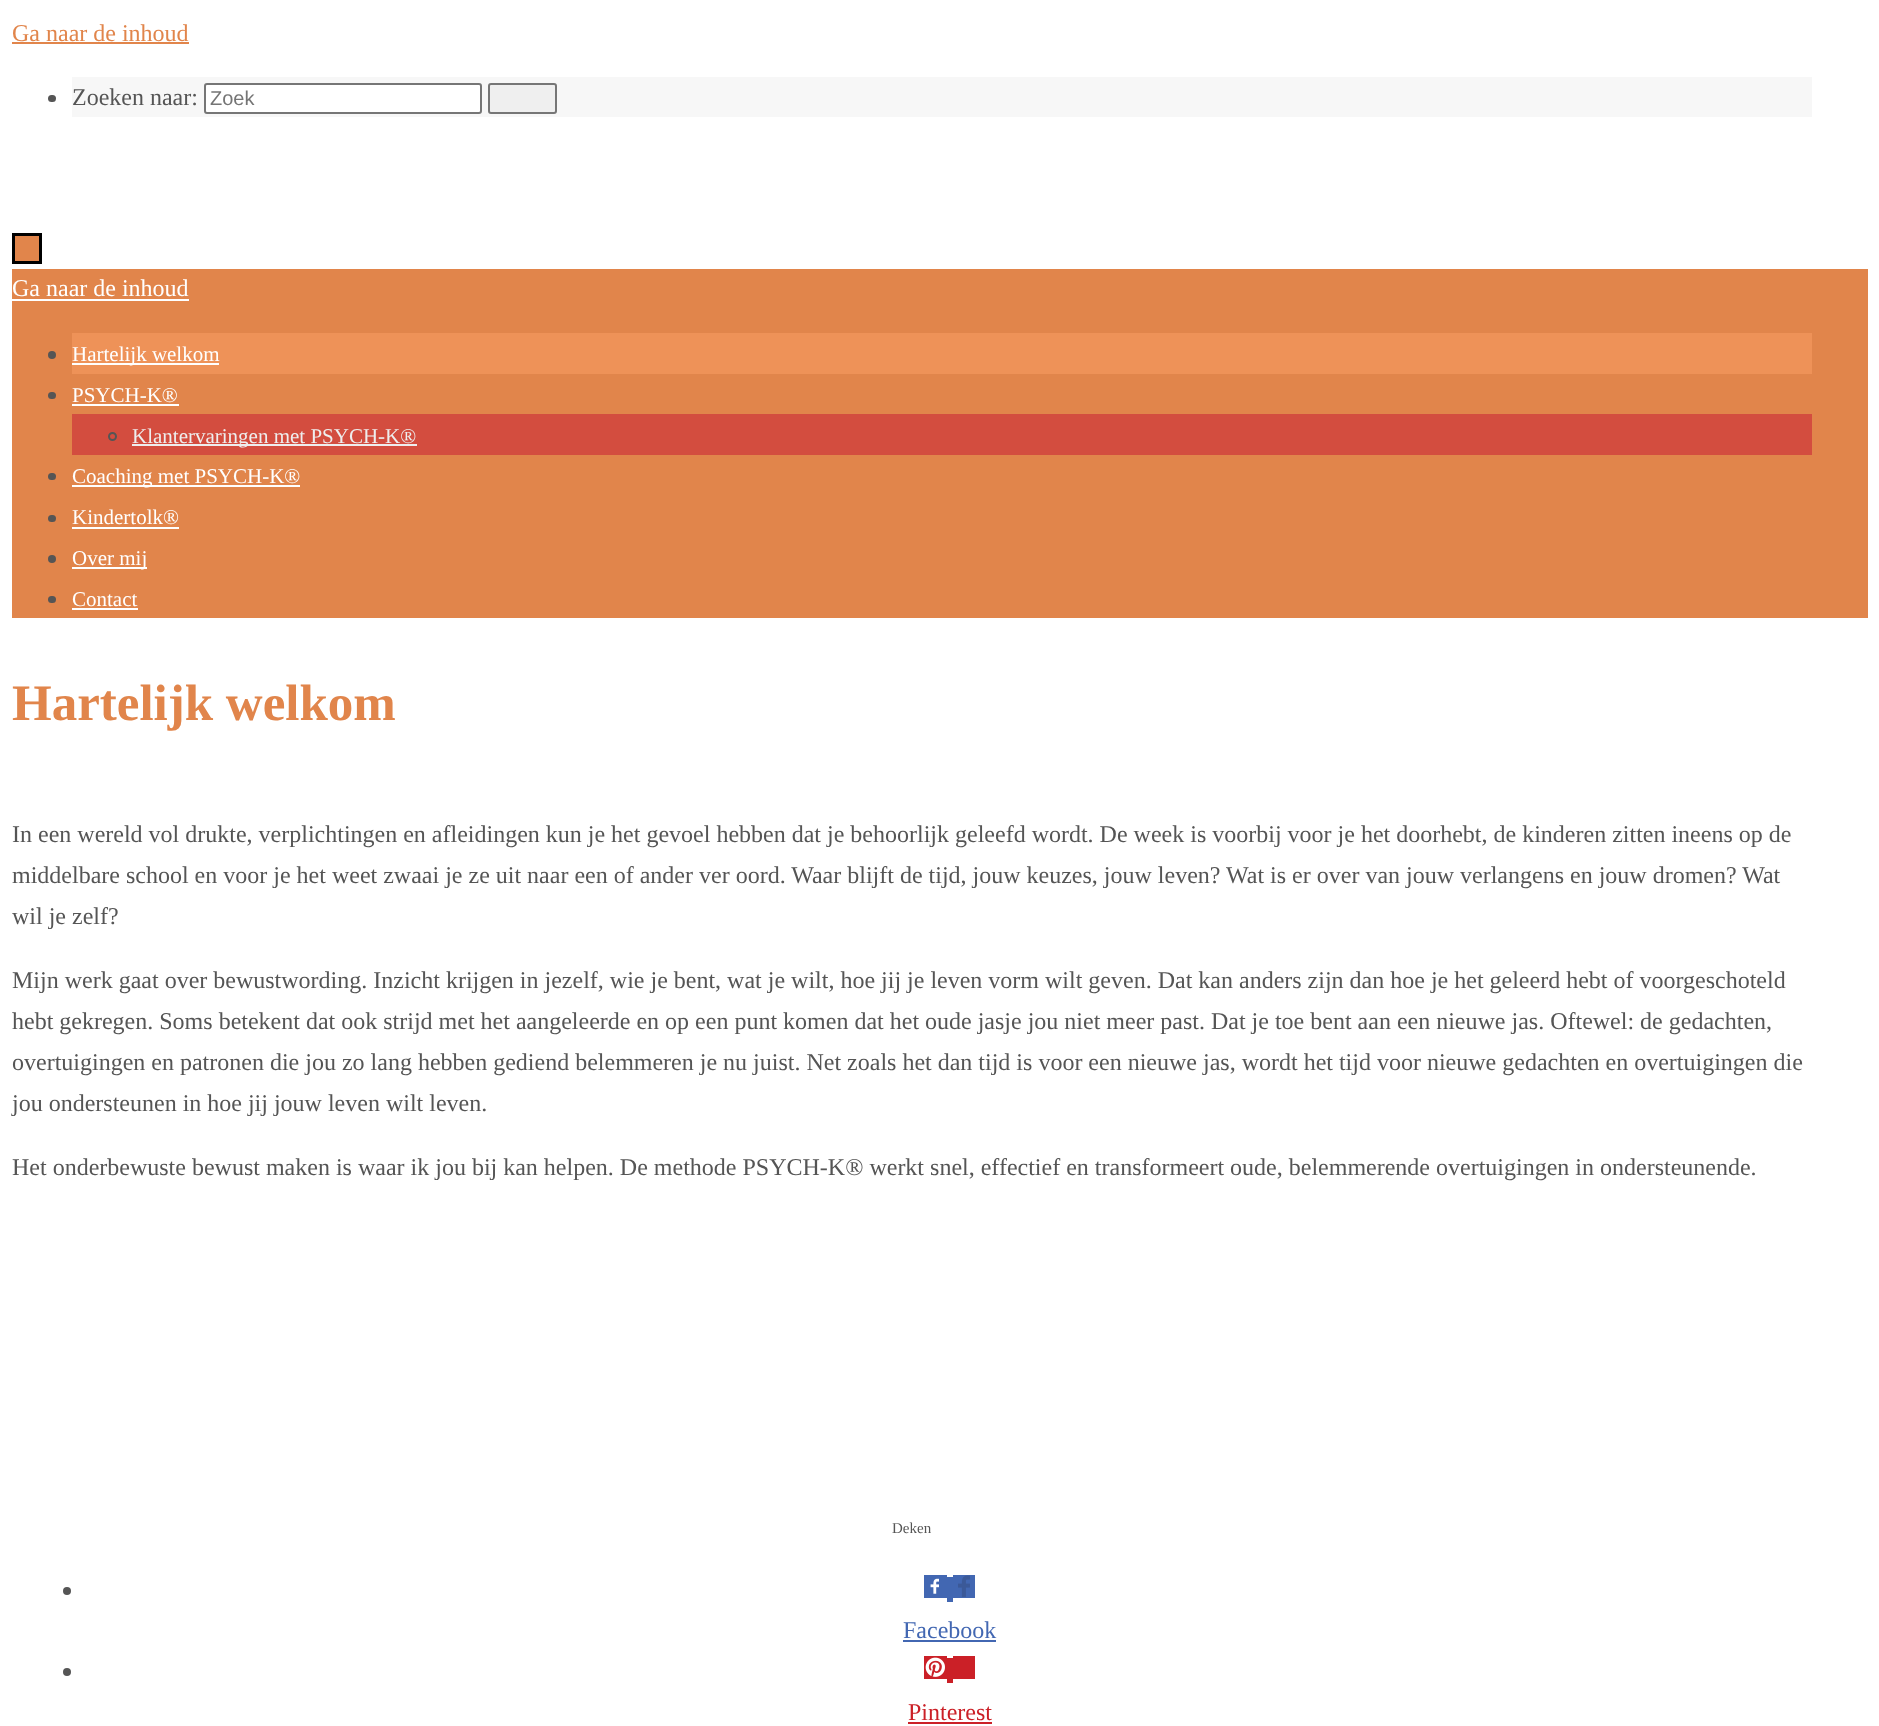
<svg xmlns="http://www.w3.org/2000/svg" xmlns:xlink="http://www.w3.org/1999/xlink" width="1879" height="1726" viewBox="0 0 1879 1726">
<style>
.cls-1{font:24px Liberation Serif;fill:#e1854b}
.cls-2{font:24px Liberation Serif;fill:#555555}
.cls-3{font:20px Liberation Sans;fill:#757575}
.cls-4{font:24px Liberation Serif;fill:#ffffff}
.cls-5{font:21px Liberation Serif;fill:#ffffff}
.cls-6{font:21px Liberation Serif;fill:#eeeeee}
.cls-7{font:bold 51px Liberation Serif;fill:#e1854b}
.cls-8{font:15px Liberation Serif;fill:#555555}
.cls-9{font:24px Liberation Serif;fill:#4267b2}
.cls-10{font:24px Liberation Serif;fill:#cb2027}
</style>
<rect width="100%" height="100%" fill="#ffffff"/>
<rect fill="#e1854b" x="12" y="42" width="177" height="2"/>
<rect fill="#555555" x="48" y="95" width="8" height="7" rx="3.5"/>
<rect fill="#f7f7f7" x="72" y="77" width="1740" height="40"/>
<rect fill="#ffffff" stroke="#767676" stroke-width="2" x="205" y="84" width="276" height="29" rx="2"/>
<rect fill="#efefef" stroke="#767676" stroke-width="2" x="489" y="84" width="67" height="29" rx="2"/>
<rect fill="#e1854b" stroke="#000000" stroke-width="3" x="13.5" y="234.5" width="27" height="28"/>
<rect fill="#e1854b" x="12" y="269" width="1856" height="349"/>
<rect fill="#ffffff" x="12" y="299" width="177" height="2"/>
<rect fill="#ee9258" x="72" y="333" width="1740" height="41"/>
<circle fill="#555555" cx="52" cy="355" r="4"/>
<rect fill="#ffffff" x="72" y="363" width="147" height="2"/>
<rect fill="#555555" x="48" y="392" width="8" height="7" rx="3.5"/>
<rect fill="#ffffff" x="72" y="404" width="107" height="2"/>
<rect fill="#d34d3f" x="72" y="414" width="1740" height="41"/>
<circle fill="none" stroke="#555555" stroke-width="2" cx="112.5" cy="436.5" r="3.5"/>
<rect fill="#eeeeee" x="132" y="444" width="285" height="2"/>
<rect fill="#555555" x="48" y="473" width="8" height="7" rx="3.5"/>
<rect fill="#ffffff" x="72" y="485" width="228" height="2"/>
<rect fill="#555555" x="48" y="515" width="8" height="7" rx="3.5"/>
<rect fill="#ffffff" x="72" y="527" width="107" height="2"/>
<circle fill="#555555" cx="52" cy="559" r="4"/>
<rect fill="#ffffff" x="72" y="567" width="75" height="2"/>
<rect fill="#555555" x="48" y="596" width="8" height="7" rx="3.5"/>
<rect fill="#ffffff" x="72" y="608" width="66" height="2"/>
<circle fill="#555555" cx="67" cy="1591" r="4"/>
<rect fill="#4267b2" x="924" y="1575" width="23" height="23"/>
<rect fill="#4267b2" x="947" y="1577" width="6" height="25"/>
<rect fill="#4267b2" x="953" y="1575" width="22" height="23"/>
<image xlink:href="image0.png" x="930" y="1578" width="9" height="16"/>
<image xlink:href="image1.png" x="958" y="1575" width="12" height="22"/>
<rect fill="#4267b2" x="903" y="1640" width="93" height="2"/>
<circle fill="#555555" cx="67" cy="1672" r="4"/>
<rect fill="#cb2027" x="924" y="1656" width="23" height="23"/>
<rect fill="#cb2027" x="947" y="1658" width="6" height="25"/>
<rect fill="#cb2027" x="953" y="1656" width="22" height="23"/>
<image xlink:href="image2.png" x="925" y="1657" width="20" height="20"/>
<rect fill="#cb2027" x="908" y="1722" width="84" height="2"/>
<text class="cls-1" x="12" y="41">Ga naar de inhoud</text>
<text class="cls-2" x="72" y="105">Zoeken naar:</text>
<text class="cls-3" x="210" y="105">Zoek</text>
<text class="cls-4" x="12" y="296">Ga naar de inhoud</text>
<text class="cls-5"><tspan x="72" y="361">Hartelijk welkom</tspan><tspan x="72" y="402">PSYCH-K®</tspan></text>
<text class="cls-6" x="132" y="443">Klantervaringen met PSYCH-K®</text>
<text class="cls-5"><tspan x="72" y="483">Coaching met PSYCH-K®</tspan><tspan x="72" y="524">Kindertolk®</tspan><tspan x="72" y="565">Over mij</tspan><tspan x="72" y="606">Contact</tspan></text>
<text class="cls-7" x="12" y="720">Hartelijk welkom</text>
<text class="cls-2"><tspan x="12" y="842">In een wereld vol drukte, verplichtingen en afleidingen kun je het gevoel hebben dat je behoorlijk geleefd wordt. De week is voorbij voor je het doorhebt, de kinderen zitten ineens op de</tspan><tspan x="12" y="883">middelbare school en voor je het weet zwaai je ze uit naar een of ander ver oord. Waar blijft de tijd, jouw keuzes, jouw leven? Wat is er over van jouw verlangens en jouw dromen? Wat</tspan><tspan x="12" y="924">wil je zelf?</tspan></text>
<text class="cls-2"><tspan x="12" y="988">Mijn werk gaat over bewustwording. Inzicht krijgen in jezelf, wie je bent, wat je wilt, hoe jij je leven vorm wilt geven. Dat kan anders zijn dan hoe je het geleerd hebt of voorgeschoteld</tspan><tspan x="12" y="1029">hebt gekregen. Soms betekent dat ook strijd met het aangeleerde en op een punt komen dat het oude jasje jou niet meer past. Dat je toe bent aan een nieuwe jas. Oftewel: de gedachten,</tspan><tspan x="12" y="1070">overtuigingen en patronen die jou zo lang hebben gediend belemmeren je nu juist. Net zoals het dan tijd is voor een nieuwe jas, wordt het tijd voor nieuwe gedachten en overtuigingen die</tspan><tspan x="12" y="1111">jou ondersteunen in hoe jij jouw leven wilt leven.</tspan></text>
<text class="cls-2" x="12" y="1175">Het onderbewuste bewust maken is waar ik jou bij kan helpen. De methode PSYCH-K® werkt snel, effectief en transformeert oude, belemmerende overtuigingen in ondersteunende.</text>
<text class="cls-8" x="892" y="1533">Deken</text>
<text class="cls-9" x="903" y="1638">Facebook</text>
<text class="cls-10" x="908" y="1720">Pinterest</text>
</svg>
